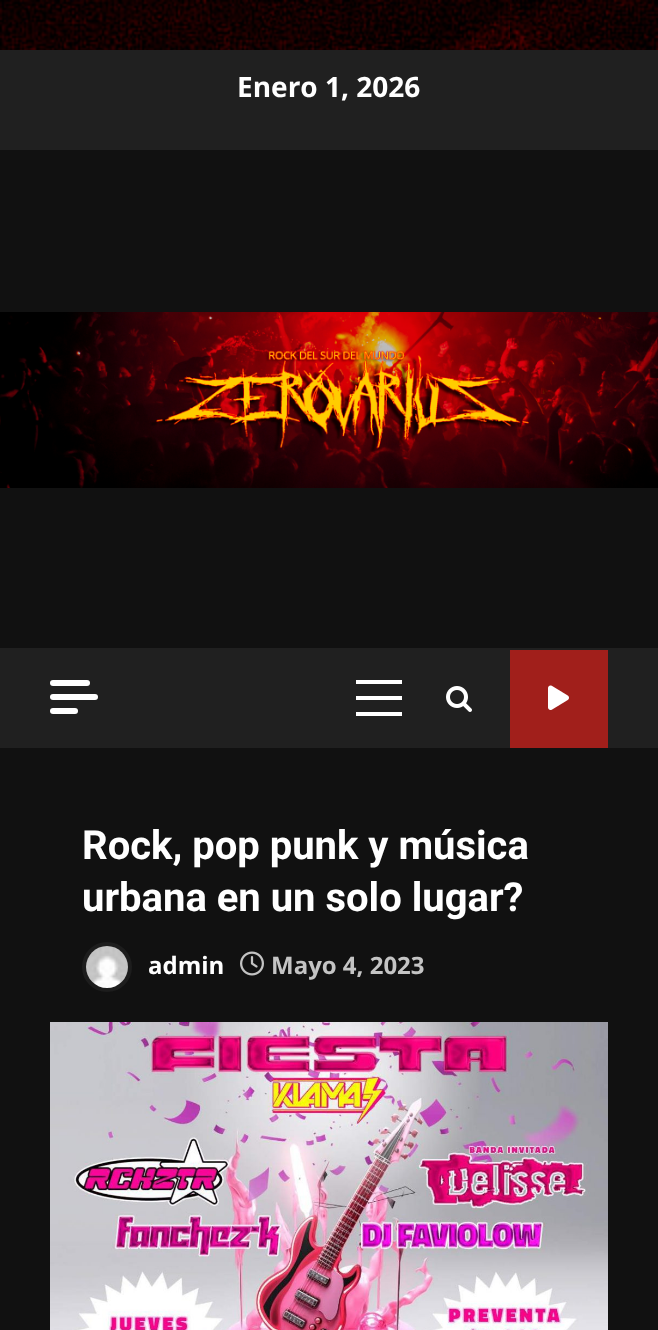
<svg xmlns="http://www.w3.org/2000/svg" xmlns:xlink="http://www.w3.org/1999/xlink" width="658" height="1330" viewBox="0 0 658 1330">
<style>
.cls-1{font:bold 28px Open Sans;fill:#ffffff}
.cls-2{font:bold 40px Roboto;fill:#ffffff}
.cls-3{font:bold 24px Open Sans;fill:#ffffff}
.cls-4{font:bold 24px Open Sans;fill:#c4c4c4}
</style>
<rect width="100%" height="100%" fill="#ffffff"/>
<image xlink:href="image0.png" x="0" y="0" width="658" height="50"/>
<rect fill="#111111" x="0" y="150" width="658" height="1180"/>
<rect fill="#202020" x="0" y="50" width="658" height="100"/>
<image xlink:href="image1.png" x="0" y="312" width="658" height="176"/>
<rect fill="#202020" x="0" y="648" width="658" height="100"/>
<rect fill="#ffffff" x="50" y="680" width="40" height="6" rx="3"/>
<rect fill="#ffffff" x="50" y="694" width="48" height="6" rx="3"/>
<rect fill="#ffffff" x="50" y="708" width="28" height="6" rx="3"/>
<rect fill="#ffffff" x="356" y="696" width="46" height="4"/>
<rect fill="#ffffff" x="356" y="680" width="46" height="4"/>
<rect fill="#ffffff" x="356" y="712" width="46" height="4"/>
<image xlink:href="image2.png" x="446" y="686" width="26" height="26"/>
<rect fill="#a11f1b" x="510" y="650" width="98" height="98"/>
<image xlink:href="image3.png" x="548" y="685" width="21" height="25"/>
<circle fill="none" stroke="#1d1d1d" stroke-width="4" cx="107" cy="967" r="23"/>
<image xlink:href="image4.png" x="86" y="946" width="42" height="42"/>
<image xlink:href="image5.png" x="240" y="951" width="24" height="25"/>
<image xlink:href="image6.png" x="50" y="1022" width="558" height="308"/>
<text class="cls-1" x="237" y="97">Enero 1, 2026</text>
<text class="cls-2"><tspan x="82" y="859">Rock, pop punk y música</tspan><tspan x="82" y="911">urbana en un solo lugar?</tspan></text>
<text class="cls-3" x="148" y="974">admin</text>
<text class="cls-4" x="271" y="974">Mayo 4, 2023</text>
</svg>
